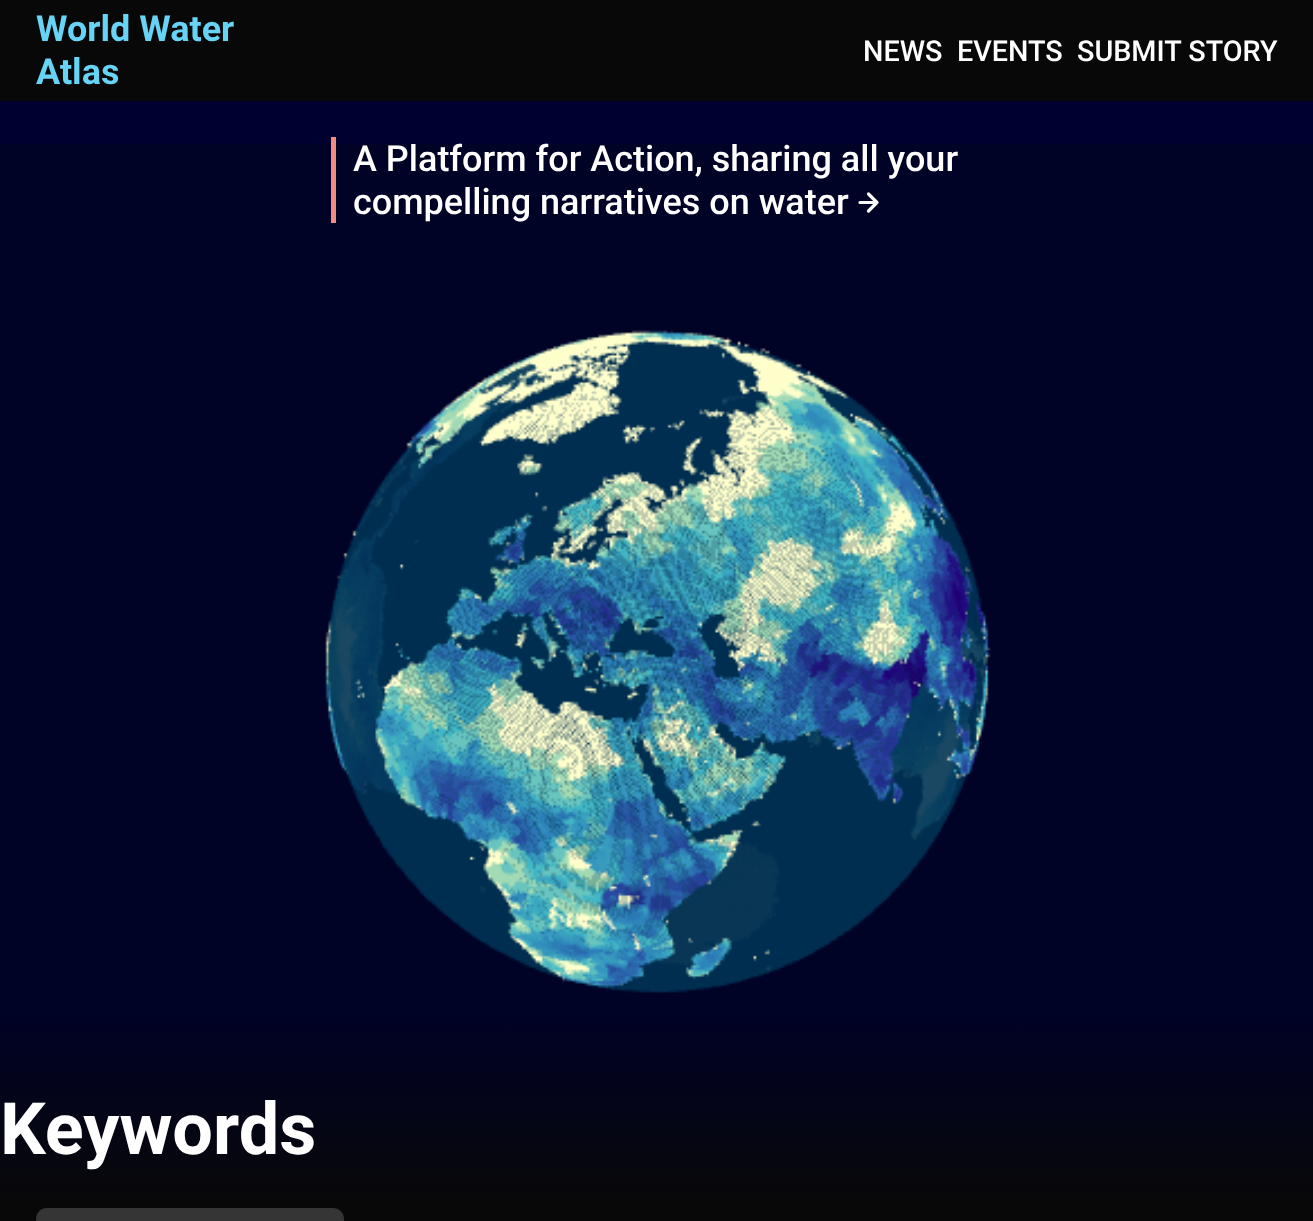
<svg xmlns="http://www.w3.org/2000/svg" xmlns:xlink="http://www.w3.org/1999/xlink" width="1313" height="1221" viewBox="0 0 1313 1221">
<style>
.cls-1{font:bold 36px Roboto;fill:#68d4f5}
.cls-2{font:500 28.75px Roboto;fill:#ffffff}
.cls-3{font:500 36px Roboto;fill:#ffffff}
.cls-4{font:bold 72px Roboto;fill:#ffffff}
</style>
<defs>
<linearGradient id="g1" gradientUnits="userSpaceOnUse" x1="657" y1="1015" x2="657" y2="1208"><stop offset="0" stop-color="#000226"/><stop offset="1" stop-color="#080808"/></linearGradient>
</defs>
<rect width="100%" height="100%" fill="#000030"/>
<rect fill="#080808" x="0" y="0" width="1313" height="101"/>
<image xlink:href="image0.png" x="0" y="144" width="1313" height="871"/>
<rect fill="#f28d82" x="331" y="137" width="5" height="86"/>
<path fill="none" stroke="#ffffff" stroke-width="3.2" stroke-linecap="round" stroke-linejoin="round" d="M860 202.5H877M868.5 194L877 202.5L868.5 211"/>
<rect fill="url(#g1)" x="0" y="1015" width="1313" height="193"/>
<rect fill="#080808" x="0" y="1208" width="1313" height="13"/>
<rect fill="#353535" x="36" y="1208" width="308" height="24" rx="11"/>
<text class="cls-1"><tspan x="36" y="41">World Water</tspan><tspan x="36" y="84">Atlas</tspan></text>
<text class="cls-2" x="863" y="61">NEWS</text>
<text class="cls-2" x="957" y="61">EVENTS</text>
<text class="cls-2" x="1077" y="61">SUBMIT STORY</text>
<text class="cls-3"><tspan x="353" y="171">A Platform for Action, sharing all your</tspan><tspan x="353" y="214">compelling narratives on water</tspan></text>
<text class="cls-4" x="0" y="1154">Keywords</text>
</svg>
